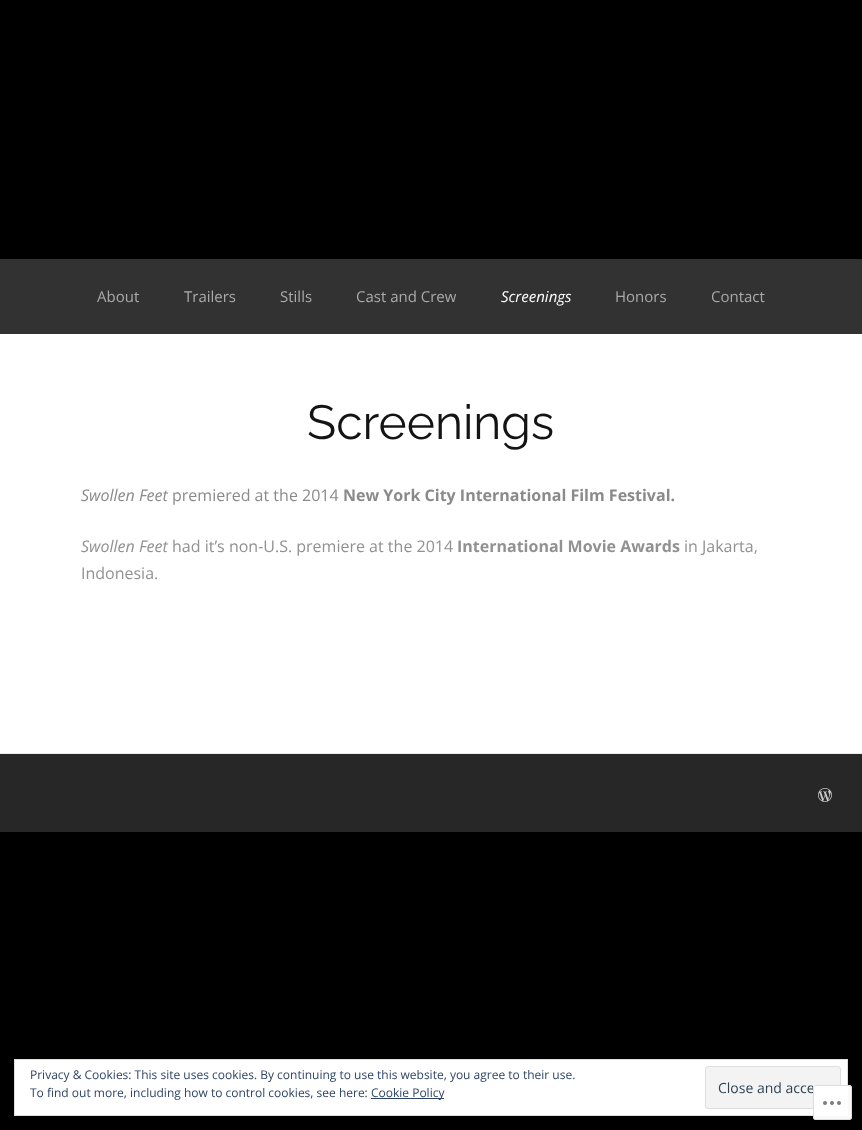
<svg xmlns="http://www.w3.org/2000/svg" xmlns:xlink="http://www.w3.org/1999/xlink" width="862" height="1130" viewBox="0 0 862 1130">
<style>
.cls-1{font:15px Open Sans;fill:#aaaaaa}
.cls-2{font:italic 15px Open Sans;fill:#ffffff}
.cls-3{font:48px Raleway;fill:#141414}
.cls-4{font:italic 16px Open Sans;fill:#8a8a8a}
.cls-5{font:16px Open Sans;fill:#8a8a8a}
.cls-6{font:bold 16px Open Sans;fill:#8a8a8a}
.cls-7{font:italic 16px Open Sans;fill:#919191}
.cls-8{font:16px Open Sans;fill:#919191}
.cls-9{font:bold 16px Open Sans;fill:#919191}
.cls-10{font:12px Open Sans;fill:#2e4467}
.cls-11{font:14px Open Sans;fill:#2e4453}
</style>
<rect width="100%" height="100%" fill="#000000"/>
<rect fill="#323232" x="0" y="259" width="862" height="75"/>
<rect fill="#ffffff" x="0" y="334" width="862" height="419"/>
<rect fill="#ebebeb" x="0" y="753" width="862" height="1"/>
<rect fill="#272727" x="0" y="754" width="862" height="78"/>
<image xlink:href="image0.png" x="818" y="788" width="14" height="14"/>
<rect fill="#ffffff" stroke="#dedede" x="14.5" y="1059.5" width="833" height="56"/>
<rect fill="#2e4467" x="371" y="1098" width="73" height="1"/>
<rect fill="#f3f3f3" stroke="#dedede" x="705.5" y="1066.5" width="135" height="42" rx="2.5"/>
<text class="cls-1" x="97" y="302">About</text>
<text class="cls-1" x="184" y="302">Trailers</text>
<text class="cls-1" x="280" y="302">Stills</text>
<text class="cls-1" x="356" y="302">Cast and Crew</text>
<text class="cls-2" x="501" y="302">Screenings</text>
<text class="cls-1" x="615" y="302">Honors</text>
<text class="cls-1" x="711" y="302">Contact</text>
<text class="cls-3" x="307" y="439">Screenings</text>
<text class="cls-4" x="81" y="501">Swollen Feet</text>
<text class="cls-5" x="172" y="501">premiered at the 2014</text>
<text class="cls-6" x="343" y="501">New York City International Film Festival.</text>
<text class="cls-7" x="81" y="552">Swollen Feet</text>
<text class="cls-8" x="172" y="552">had it’s non-U.S. premiere at the 2014</text>
<text class="cls-9" x="457" y="552">International Movie Awards</text>
<text class="cls-8" x="684" y="552">in Jakarta,</text>
<text class="cls-8" x="81" y="579">Indonesia.</text>
<text class="cls-10"><tspan x="30" y="1079">Privacy &amp; Cookies: This site uses cookies. By continuing to use this website, you agree to their use.</tspan><tspan x="30" y="1097">To find out more, including how to control cookies, see here:</tspan></text>
<text class="cls-10" x="371" y="1097">Cookie Policy</text>
<text class="cls-11" x="718" y="1093">Close and acce</text>
<rect fill="#ffffff" fill-opacity="0.98" x="813" y="1085" width="39" height="35" rx="3"/>
<rect fill="none" stroke="#dcdcde" stroke-opacity="0.98" x="813.5" y="1085.5" width="38" height="34" rx="2.5"/>
<image xlink:href="image1.png" x="823" y="1101" width="18" height="4"/>
</svg>
